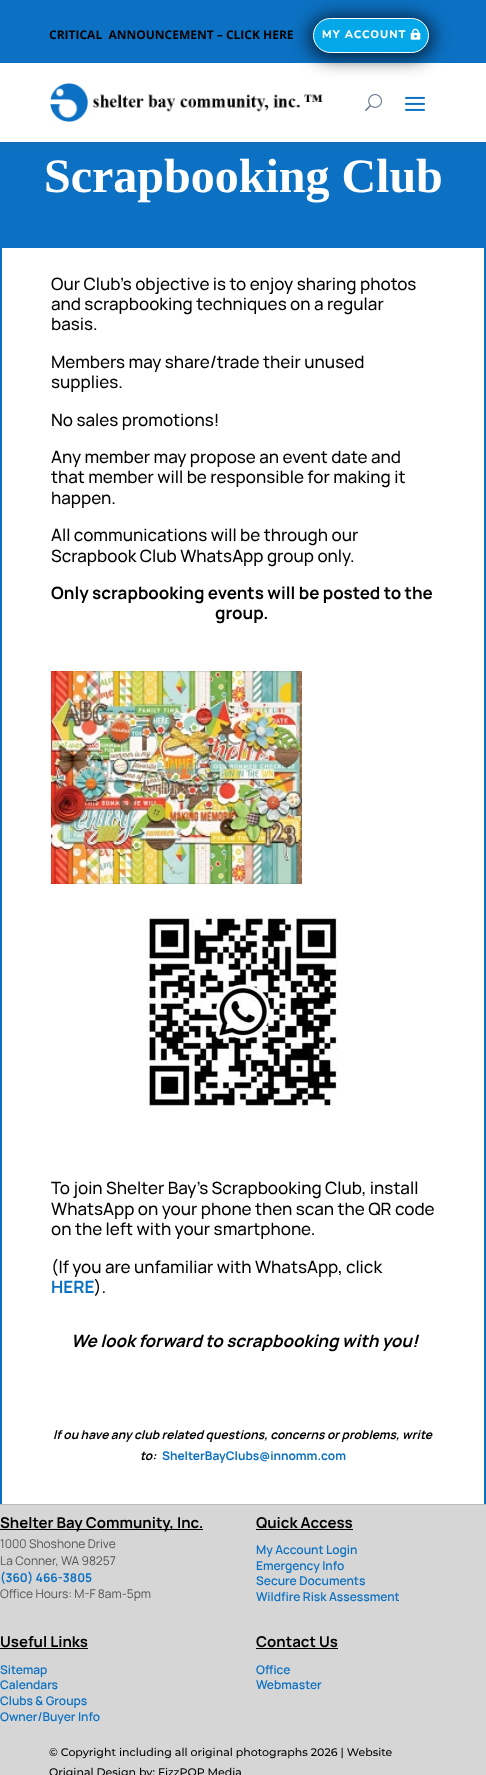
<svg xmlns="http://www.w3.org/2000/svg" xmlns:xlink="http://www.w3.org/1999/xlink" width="486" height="1775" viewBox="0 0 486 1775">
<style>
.cls-1{font:bold 12px Open Sans;fill:#000000}
.cls-2{font:800 11px Nunito Sans;letter-spacing:1px;fill:#ffffff}
.cls-3{font:bold 48px Liberation Serif;fill:#ffffff}
.cls-4{font:500 17px Manrope;fill:#000000}
.cls-5{font:bold 17px Manrope;fill:#000000}
.cls-6{font:bold 17px Manrope;fill:#0c71c3}
.cls-7{font:italic bold 17px Manrope;fill:#000000}
.cls-8{font:italic bold 12px Manrope;fill:#000000}
.cls-9{font:bold 12px Manrope;fill:#0c71c3}
.cls-10{font:bold 15px Manrope;fill:#000000}
.cls-11{font:12px Manrope;fill:#545454}
.cls-12{font:600 12px Manrope;fill:#0c71c3}
.cls-13{font:500 11px Montserrat;fill:#000000}
</style>
<rect width="100%" height="100%" fill="#0c71c3"/>
<rect fill="#515873" fill-opacity="0.14" filter="blur(1.5px)" x="0" y="2" width="486" height="142"/>
<rect fill="#ffffff" x="0" y="63" width="486" height="79"/>
<rect fill="#0c71c3" x="0" y="1" width="486" height="62"/>
<image xlink:href="image1.png" x="50" y="83" width="273" height="39"/>
<rect fill="#000000" fill-opacity="0.68" filter="blur(9px)" x="309" y="16" width="124" height="43" rx="21.5"/>
<rect fill="#04a7e8" stroke="#ffffff" x="313.5" y="18.5" width="115" height="34" rx="17"/>
<image xlink:href="image0.png" x="410" y="28" width="11" height="12"/>
<image xlink:href="image2.png" x="365" y="94" width="17" height="18"/>
<image xlink:href="image3.png" x="405" y="96" width="20" height="15"/>
<rect fill="#ffffff" x="2" y="248" width="482" height="1256"/>
<image xlink:href="image4.png" x="51" y="671" width="251" height="213"/>
<image xlink:href="image5.png" x="146" y="914" width="192" height="192"/>
<rect fill="#d6d6d6" x="0" y="1505" width="486" height="270"/>
<rect fill="#b5bac0" x="0" y="1504" width="486" height="1"/>
<rect fill="#000000" x="0" y="1529" width="203" height="1"/>
<rect fill="#000000" x="256" y="1529" width="97" height="1"/>
<rect fill="#000000" x="0" y="1648" width="88" height="1"/>
<rect fill="#000000" x="256" y="1648" width="82" height="1"/>
<text class="cls-1" xml:space="preserve" x="49" y="39">CRITICAL  ANNOUNCEMENT – CLICK HERE</text>
<text class="cls-2" x="322" y="38">MY ACCOUNT</text>
<text class="cls-3" x="44" y="192">Scrapbooking Club</text>
<text class="cls-4"><tspan x="51" y="290">Our Club’s objective is to enjoy sharing photos</tspan><tspan x="51" y="310">and scrapbooking techniques on a regular</tspan><tspan x="51" y="330">basis.</tspan></text>
<text class="cls-4"><tspan x="51" y="368">Members may share/trade their unused</tspan><tspan x="51" y="388">supplies.</tspan></text>
<text class="cls-4" x="51" y="426">No sales promotions!</text>
<text class="cls-4"><tspan x="51" y="463">Any member may propose an event date and</tspan><tspan x="51" y="483">that member will be responsible for making it</tspan><tspan x="51" y="504">happen.</tspan></text>
<text class="cls-4"><tspan x="51" y="541">All communications will be through our</tspan><tspan x="51" y="562">Scrapbook Club WhatsApp group only.</tspan></text>
<text class="cls-5" x="51" y="599">Only scrapbooking events will be posted to the</text>
<text class="cls-5" x="215" y="619">group.</text>
<text class="cls-4"><tspan x="51" y="1194">To join Shelter Bay’s Scrapbooking Club, install</tspan><tspan x="51" y="1215">WhatsApp on your phone then scan the QR code</tspan><tspan x="51" y="1235">on the left with your smartphone.</tspan></text>
<text class="cls-4" x="51" y="1273">(If you are unfamiliar with WhatsApp, click</text>
<text class="cls-6" x="51" y="1293">HERE</text>
<text class="cls-4" x="94" y="1293">).</text>
<text class="cls-7" x="71" y="1347">We look forward to scrapbooking with you!</text>
<text class="cls-8" x="53" y="1439">If ou have any club related questions, concerns or problems, write</text>
<text class="cls-8" x="140" y="1460">to:</text>
<text class="cls-9" x="162" y="1460">ShelterBayClubs@innomm.com</text>
<text class="cls-10" x="0" y="1528">Shelter Bay Community, Inc.</text>
<text class="cls-11"><tspan x="0" y="1548">1000 Shoshone Drive</tspan><tspan x="0" y="1565">La Conner, WA 98257</tspan></text>
<text class="cls-9" x="0" y="1582">(360) 466-3805</text>
<text class="cls-11" x="0" y="1598">Office Hours: M-F 8am-5pm</text>
<text class="cls-10" x="256" y="1528">Quick Access</text>
<text class="cls-12"><tspan x="256" y="1554">My Account Login</tspan><tspan x="256" y="1570">Emergency Info</tspan><tspan x="256" y="1585">Secure Documents</tspan><tspan x="256" y="1601">Wildfire Risk Assessment</tspan></text>
<text class="cls-10" x="0" y="1647">Useful Links</text>
<text class="cls-12"><tspan x="0" y="1674">Sitemap</tspan><tspan x="0" y="1689">Calendars</tspan><tspan x="0" y="1705">Clubs &amp; Groups</tspan><tspan x="0" y="1721">Owner/Buyer Info</tspan></text>
<text class="cls-10" x="256" y="1647">Contact Us</text>
<text class="cls-12"><tspan x="256" y="1674">Office</tspan><tspan x="256" y="1689">Webmaster</tspan></text>
<text class="cls-13"><tspan x="49" y="1756">© Copyright including all original photographs 2026 | Website</tspan><tspan x="49" y="1776">Original Design by: FizzPOP Media</tspan></text>
</svg>
